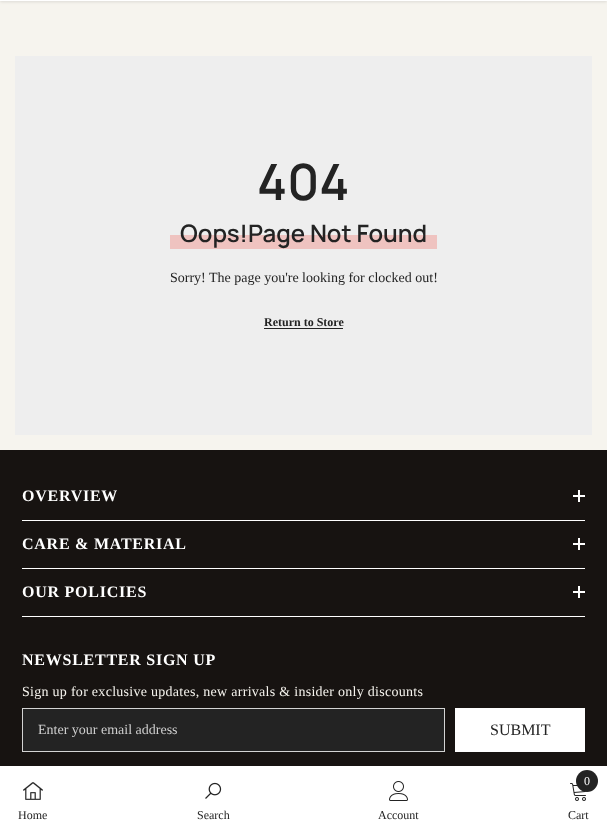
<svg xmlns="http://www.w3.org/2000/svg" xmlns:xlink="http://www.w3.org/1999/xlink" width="607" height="832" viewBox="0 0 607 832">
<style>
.cls-1{font:600 50px Manrope;fill:#232323}
.cls-2{font:600 24px Manrope;fill:#232323}
.cls-3{font:14px Liberation Serif;fill:#232323}
.cls-4{font:bold 12px Liberation Serif;fill:#232323}
.cls-5{font:bold 16px Liberation Serif;letter-spacing:0.75px;fill:#ffffff}
.cls-6{font:14px Liberation Serif;letter-spacing:0.28px;fill:#f6f4ee}
.cls-7{font:14px Liberation Serif;fill:#cfcfcf}
.cls-8{font:16px Liberation Serif;fill:#232323}
.cls-9{font:12px Liberation Serif;fill:#232323}
.cls-10{font:12px Liberation Serif;fill:#ffffff}
</style>
<rect width="100%" height="100%" fill="#f6f4ee"/>
<rect fill="#000000" fill-opacity="0.1" filter="blur(1.5px)" x="0" y="-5" width="607" height="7"/>
<rect fill="#ffffff" x="0" y="0" width="607" height="1"/>
<rect fill="#eeeeee" x="15" y="56" width="577" height="379"/>
<rect fill="#efc3c0" x="170" y="235" width="267" height="14"/>
<rect fill="#232323" x="264" y="328" width="79" height="1"/>
<rect fill="#171311" x="0" y="450" width="607" height="316"/>
<rect fill="#ffffff" x="22" y="520" width="563" height="1"/>
<rect fill="#ffffff" x="578" y="490" width="2" height="12"/>
<rect fill="#ffffff" x="573" y="495" width="12" height="2"/>
<rect fill="#ffffff" x="22" y="568" width="563" height="1"/>
<rect fill="#ffffff" x="578" y="538" width="2" height="12"/>
<rect fill="#ffffff" x="573" y="543" width="12" height="2"/>
<rect fill="#ffffff" x="22" y="616" width="563" height="1"/>
<rect fill="#ffffff" x="578" y="586" width="2" height="12"/>
<rect fill="#ffffff" x="573" y="591" width="12" height="2"/>
<rect fill="#232323" stroke="#d3d3d3" x="22.5" y="708.5" width="422" height="43"/>
<rect fill="#ffffff" x="455" y="708" width="130" height="44"/>
<rect fill="#ffffff" x="0" y="766" width="607" height="66"/>
<image xlink:href="image0.png" x="23" y="782" width="20" height="18"/>
<image xlink:href="image1.png" x="205" y="782" width="17" height="17"/>
<image xlink:href="image2.png" x="389" y="781" width="19" height="20"/>
<image xlink:href="image3.png" x="570" y="783" width="16" height="18"/>
<circle fill="#232323" cx="587" cy="781" r="11"/>
<text class="cls-1" x="257" y="200">404</text>
<text class="cls-2" x="180" y="242">Oops!Page Not Found</text>
<text class="cls-3" x="170" y="282">Sorry! The page you're looking for clocked out!</text>
<text class="cls-4" x="264" y="326">Return to Store</text>
<text class="cls-5" x="22" y="501">OVERVIEW</text>
<text class="cls-5" x="22" y="549">CARE &amp; MATERIAL</text>
<text class="cls-5" x="22" y="597">OUR POLICIES</text>
<text class="cls-5" x="22" y="665">NEWSLETTER SIGN UP</text>
<text class="cls-6" x="22" y="696">Sign up for exclusive updates, new arrivals &amp; insider only discounts</text>
<text class="cls-7" x="38" y="734">Enter your email address</text>
<text class="cls-8" x="490" y="735">SUBMIT</text>
<text class="cls-9" x="18" y="819">Home</text>
<text class="cls-9" x="197" y="819">Search</text>
<text class="cls-9" x="378" y="819">Account</text>
<text class="cls-10" x="584" y="785">0</text>
<text class="cls-9" x="568" y="819">Cart</text>
</svg>
